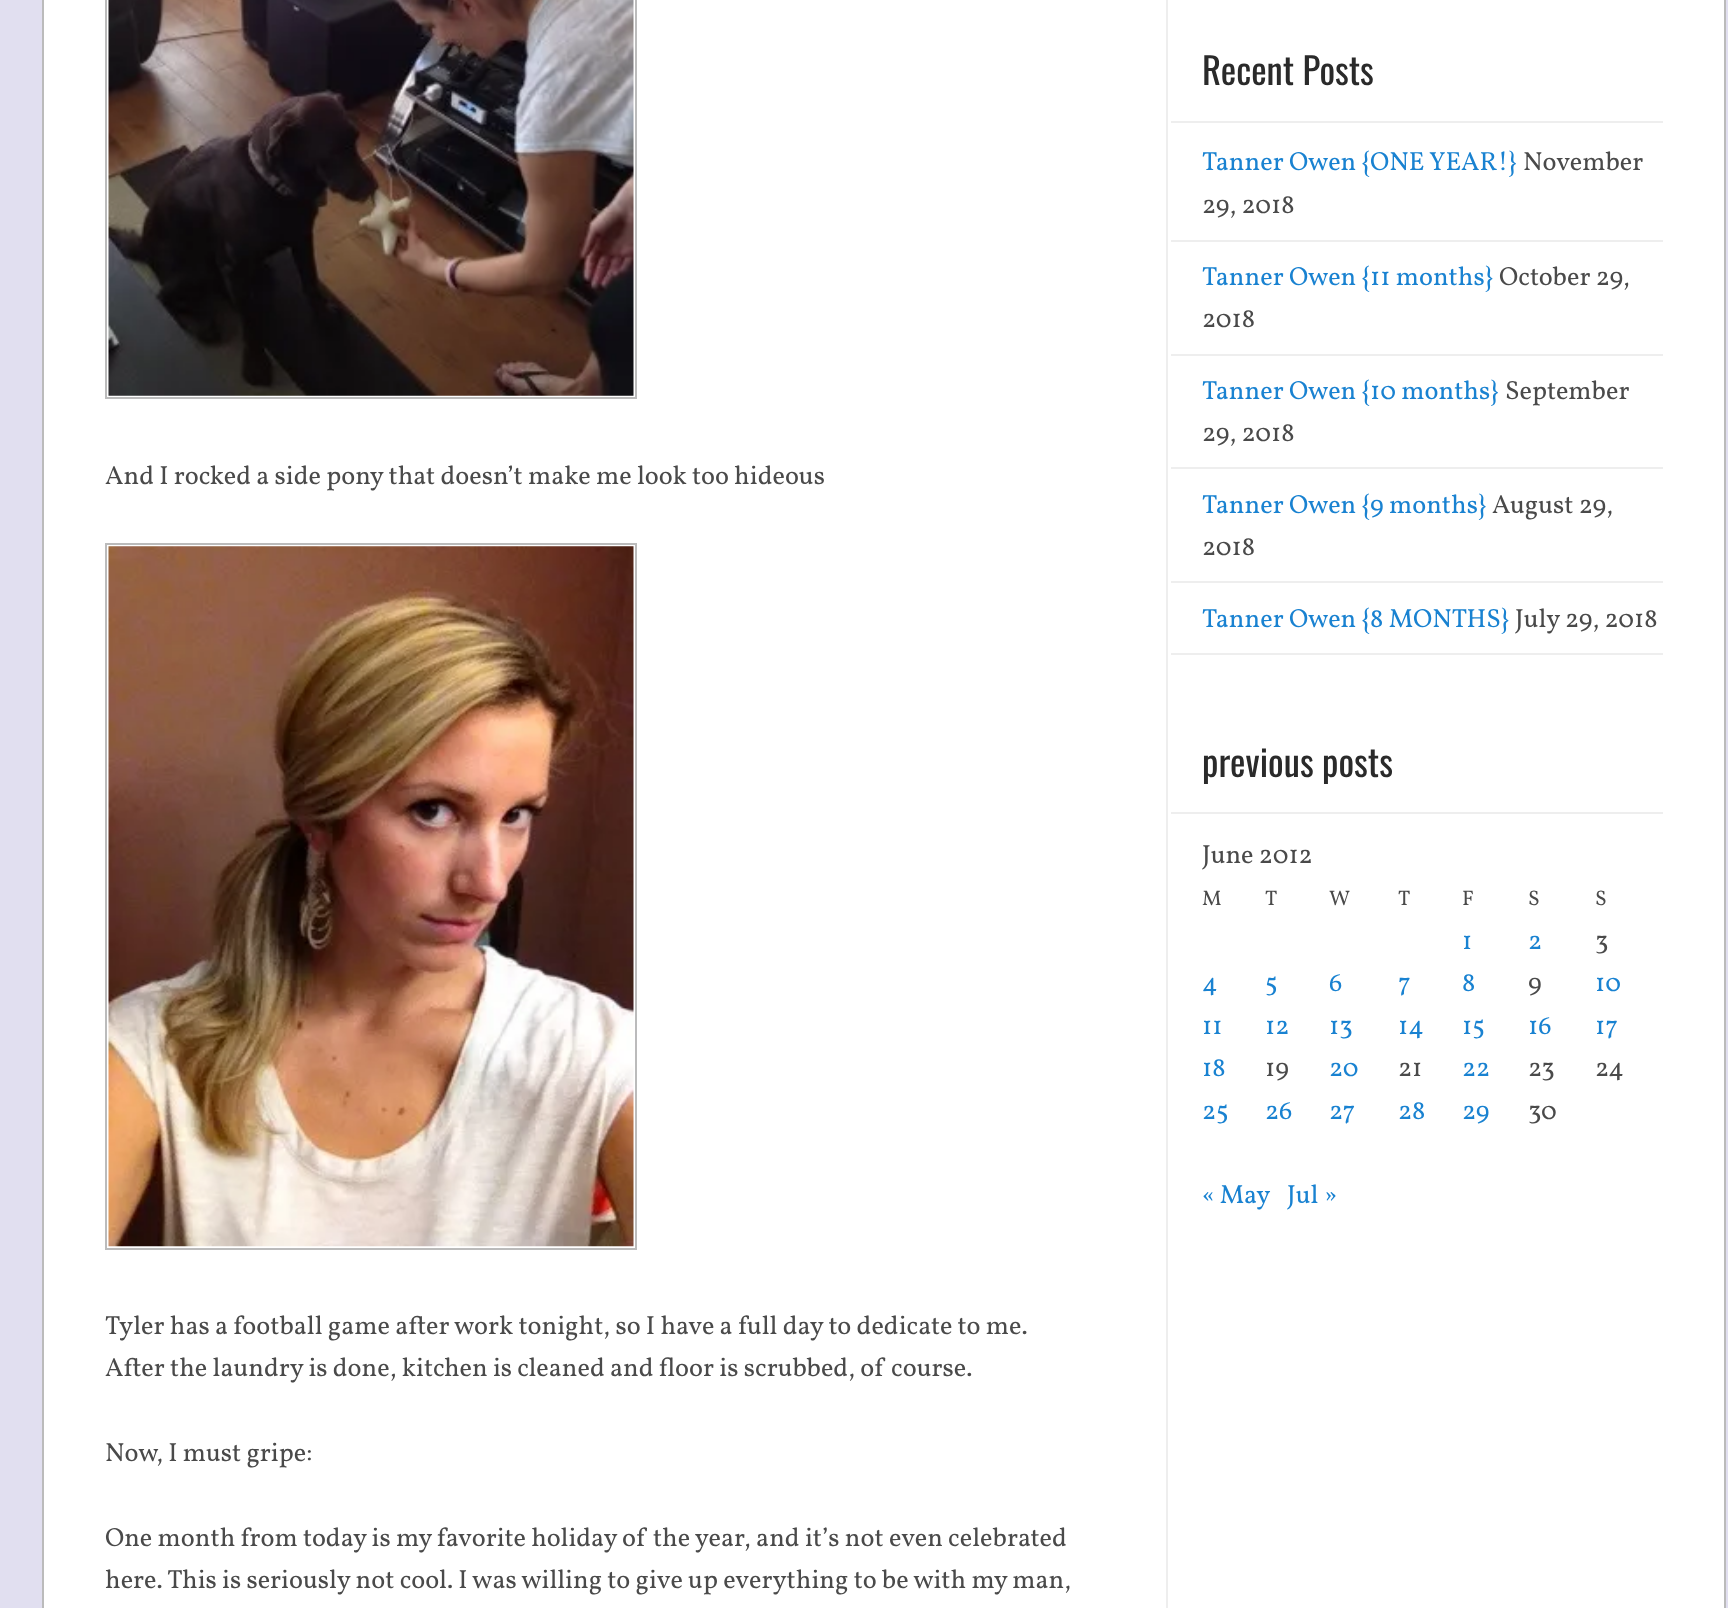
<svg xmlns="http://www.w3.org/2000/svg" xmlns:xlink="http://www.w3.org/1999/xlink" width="1728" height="1608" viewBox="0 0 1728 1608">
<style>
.cls-1{font:26.25px Vollkorn;fill:#4a4a4a}
.cls-2{font:36.75px Oswald;fill:#2a2a2a}
.cls-3{font:26.25px Vollkorn;fill:#1982d1}
.cls-4{font:21px Vollkorn;fill:#4a4a4a}
</style>
<rect width="100%" height="100%" fill="#e1dff0"/>
<rect fill="#ffffff" stroke="#bbbbbb" stroke-width="2" x="43" y="-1" width="1682" height="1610"/>
<rect fill="none" stroke="#bbbbbb" stroke-width="2" x="106" y="-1" width="530" height="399"/>
<image xlink:href="image0.png" x="108" y="0" width="526" height="396"/>
<rect fill="none" stroke="#bbbbbb" stroke-width="2" x="106" y="544" width="530" height="705"/>
<image xlink:href="image1.png" x="108" y="546" width="526" height="701"/>
<rect fill="#eeeeee" x="1166" y="0" width="2" height="1608"/>
<rect fill="#eeeeee" x="1171" y="121" width="492" height="2"/>
<rect fill="#eeeeee" x="1171" y="240" width="492" height="2"/>
<rect fill="#eeeeee" x="1171" y="354" width="492" height="2"/>
<rect fill="#eeeeee" x="1171" y="467" width="492" height="2"/>
<rect fill="#eeeeee" x="1171" y="581" width="492" height="2"/>
<rect fill="#eeeeee" x="1171" y="653" width="492" height="2"/>
<rect fill="#eeeeee" x="1171" y="812" width="492" height="2"/>
<text class="cls-1" x="105" y="484">And I rocked a side pony that doesn’t make me look too hideous</text>
<text class="cls-1"><tspan x="105" y="1334">Tyler has a football game after work tonight, so I have a full day to dedicate to me.</tspan><tspan x="105" y="1376">After the laundry is done, kitchen is cleaned and floor is scrubbed, of course.</tspan></text>
<text class="cls-1" x="105" y="1461">Now, I must gripe:</text>
<text class="cls-1"><tspan x="105" y="1546">One month from today is my favorite holiday of the year, and it’s not even celebrated</tspan><tspan x="105" y="1588">here. This is seriously not cool. I was willing to give up everything to be with my man,</tspan></text>
<text class="cls-2" x="1202" y="85">Recent Posts</text>
<text class="cls-3" x="1202" y="170">Tanner Owen {ONE YEAR!}</text>
<text class="cls-1" x="1523" y="170">November</text>
<text class="cls-1" x="1202" y="213">29, 2018</text>
<text class="cls-3" x="1202" y="285">Tanner Owen {11 months}</text>
<text class="cls-1" x="1499" y="285">October 29,</text>
<text class="cls-1" x="1202" y="327">2018</text>
<text class="cls-3" x="1202" y="399">Tanner Owen {10 months}</text>
<text class="cls-1" x="1505" y="399">September</text>
<text class="cls-1" x="1202" y="441">29, 2018</text>
<text class="cls-3" x="1202" y="513">Tanner Owen {9 months}</text>
<text class="cls-1" x="1492" y="513">August 29,</text>
<text class="cls-1" x="1202" y="555">2018</text>
<text class="cls-3" x="1202" y="627">Tanner Owen {8 MONTHS}</text>
<text class="cls-1" x="1515" y="627">July 29, 2018</text>
<text class="cls-2" x="1202" y="777">previous posts</text>
<text class="cls-1" x="1202" y="863">June 2012</text>
<text class="cls-4" x="1202" y="905">M</text>
<text class="cls-4" x="1265" y="905">T</text>
<text class="cls-4" x="1329" y="905">W</text>
<text class="cls-4" x="1398" y="905">T</text>
<text class="cls-4" x="1462" y="905">F</text>
<text class="cls-4" x="1528" y="905">S</text>
<text class="cls-4" x="1595" y="905">S</text>
<text class="cls-3" x="1462" y="949">1</text>
<text class="cls-3" x="1528" y="949">2</text>
<text class="cls-1" x="1595" y="949">3</text>
<text class="cls-3" x="1202" y="991">4</text>
<text class="cls-3" x="1265" y="991">5</text>
<text class="cls-3" x="1329" y="991">6</text>
<text class="cls-3" x="1398" y="991">7</text>
<text class="cls-3" x="1462" y="991">8</text>
<text class="cls-1" x="1528" y="991">9</text>
<text class="cls-3" x="1595" y="991">10</text>
<text class="cls-3" x="1202" y="1034">11</text>
<text class="cls-3" x="1265" y="1034">12</text>
<text class="cls-3" x="1329" y="1034">13</text>
<text class="cls-3" x="1398" y="1034">14</text>
<text class="cls-3" x="1462" y="1034">15</text>
<text class="cls-3" x="1528" y="1034">16</text>
<text class="cls-3" x="1595" y="1034">17</text>
<text class="cls-3" x="1202" y="1076">18</text>
<text class="cls-1" x="1265" y="1076">19</text>
<text class="cls-3" x="1329" y="1076">20</text>
<text class="cls-1" x="1398" y="1076">21</text>
<text class="cls-3" x="1462" y="1076">22</text>
<text class="cls-1" x="1528" y="1076">23</text>
<text class="cls-1" x="1595" y="1076">24</text>
<text class="cls-3" x="1202" y="1119">25</text>
<text class="cls-3" x="1265" y="1119">26</text>
<text class="cls-3" x="1329" y="1119">27</text>
<text class="cls-3" x="1398" y="1119">28</text>
<text class="cls-3" x="1462" y="1119">29</text>
<text class="cls-1" x="1528" y="1119">30</text>
<text class="cls-3" x="1202" y="1203" word-spacing="-1">« May</text>
<text class="cls-3" x="1287" y="1203">Jul »</text>
</svg>
